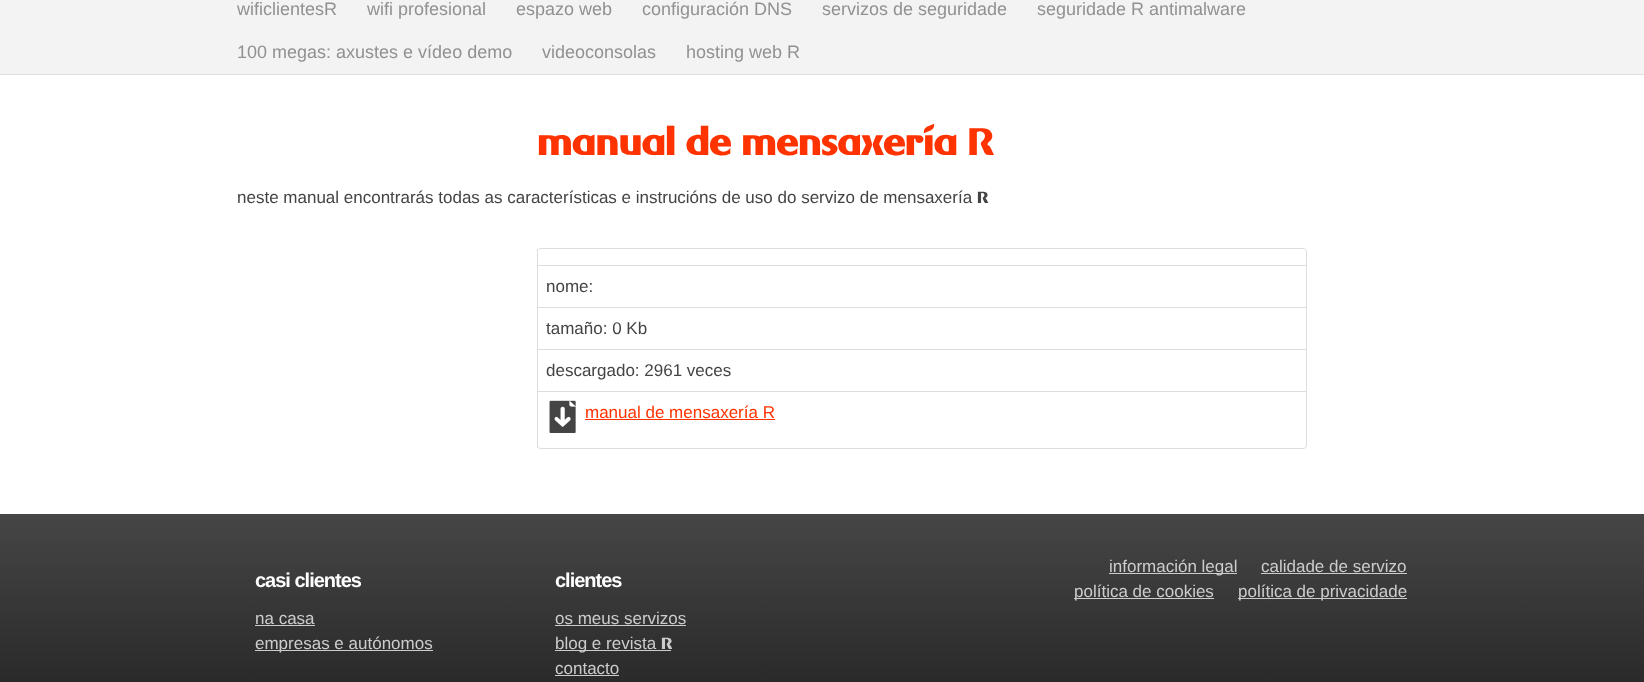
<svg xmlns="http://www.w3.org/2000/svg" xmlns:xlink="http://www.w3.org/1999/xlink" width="1644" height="682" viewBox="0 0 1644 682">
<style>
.cls-1{font:18px Liberation Sans;fill:#919191}
.cls-2{font:bold 38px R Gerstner;letter-spacing:-1px;fill:#ff3300}
.cls-3{font:17px Liberation Sans;fill:#444444}
.cls-4{font:bold 16px R Gerstner;letter-spacing:-1px;fill:#444444}
.cls-5{font:17px Liberation Sans;fill:#ff3300}
.cls-6{font:bold 20px Liberation Sans;letter-spacing:-1px;fill:#ffffff}
.cls-7{font:17px Liberation Sans;fill:#cccccc}
.cls-8{font:bold 16px R Gerstner;letter-spacing:-1px;fill:#cccccc}
</style>
<defs>
<linearGradient id="g1" gradientUnits="userSpaceOnUse" x1="822" y1="514" x2="822" y2="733"><stop offset="0" stop-color="#464646"/><stop offset="0.91" stop-color="#252525"/></linearGradient>
</defs>
<rect width="100%" height="100%" fill="#ffffff"/>
<rect fill="#f3f3f3" x="0" y="0" width="1644" height="74"/>
<rect fill="#dfdfdf" x="0" y="74" width="1644" height="1"/>
<path fill="#dddddd" fill-rule="evenodd" d="M541 248H1303C1305 248 1307 250 1307 252V445C1307 447 1305 449 1303 449H541C539 449 537 447 537 445V252C537 250 539 248 541 248ZM541 249H1303C1305 249 1306 250 1306 252V445C1306 447 1305 448 1303 448H541C539 448 537 447 537 445V252C537 250 539 249 541 249Z"/>
<rect fill="#dddddd" x="537" y="249" width="1" height="16"/>
<rect fill="#dddddd" x="537" y="265" width="769" height="1"/>
<rect fill="#dddddd" x="537" y="265" width="1" height="42"/>
<rect fill="#dddddd" x="537" y="307" width="769" height="1"/>
<rect fill="#dddddd" x="537" y="307" width="1" height="42"/>
<rect fill="#dddddd" x="537" y="349" width="769" height="1"/>
<rect fill="#dddddd" x="537" y="349" width="1" height="42"/>
<rect fill="#dddddd" x="537" y="391" width="769" height="1"/>
<rect fill="#dddddd" x="537" y="391" width="1" height="57"/>
<image xlink:href="image0.png" x="549" y="400" width="27" height="33"/>
<rect fill="#ff3300" x="585" y="419" width="190" height="1"/>
<rect fill="url(#g1)" x="0" y="514" width="1644" height="168"/>
<rect fill="#cccccc" x="255" y="625" width="60" height="1"/>
<rect fill="#cccccc" x="255" y="650" width="178" height="1"/>
<rect fill="#cccccc" x="555" y="625" width="131" height="1"/>
<rect fill="#cccccc" x="555" y="650" width="116" height="1"/>
<rect fill="#cccccc" x="555" y="675" width="64" height="1"/>
<rect fill="#cccccc" x="1109" y="573" width="128" height="1"/>
<rect fill="#cccccc" x="1261" y="573" width="146" height="1"/>
<rect fill="#cccccc" x="1074" y="598" width="140" height="1"/>
<rect fill="#cccccc" x="1238" y="598" width="169" height="1"/>
<text class="cls-1" x="237" y="15">wificlientesR</text>
<text class="cls-1" x="367" y="15">wifi profesional</text>
<text class="cls-1" x="516" y="15">espazo web</text>
<text class="cls-1" x="642" y="15">configuración DNS</text>
<text class="cls-1" x="822" y="15">servizos de seguridade</text>
<text class="cls-1" x="1037" y="15">seguridade R antimalware</text>
<text class="cls-1" x="237" y="58">100 megas: axustes e vídeo demo</text>
<text class="cls-1" x="542" y="58">videoconsolas</text>
<text class="cls-1" x="686" y="58">hosting web R</text>
<text class="cls-2" x="537" y="155">manual de mensaxería R</text>
<text class="cls-3" x="237" y="203">neste manual encontrarás todas as características e instrucións de uso do servizo de mensaxería</text>
<text class="cls-4" x="977" y="203">R</text>
<text class="cls-3" x="546" y="292">nome:</text>
<text class="cls-3" x="546" y="334">tamaño: 0 Kb</text>
<text class="cls-3" x="546" y="376">descargado: 2961 veces</text>
<text class="cls-5" x="585" y="418">manual de mensaxería R</text>
<text class="cls-6" x="255" y="587">casi clientes</text>
<text class="cls-7"><tspan x="255" y="624">na casa</tspan><tspan x="255" y="649">empresas e autónomos</tspan></text>
<text class="cls-6" x="555" y="587">clientes</text>
<text class="cls-7"><tspan x="555" y="624">os meus servizos</tspan><tspan x="555" y="649">blog e revista</tspan></text>
<text class="cls-8" x="661" y="649">R</text>
<text class="cls-7" x="555" y="674">contacto</text>
<text class="cls-7" x="1109" y="572">información legal</text>
<text class="cls-7" x="1261" y="572">calidade de servizo</text>
<text class="cls-7" x="1074" y="597">política de cookies</text>
<text class="cls-7" x="1238" y="597">política de privacidade</text>
</svg>
